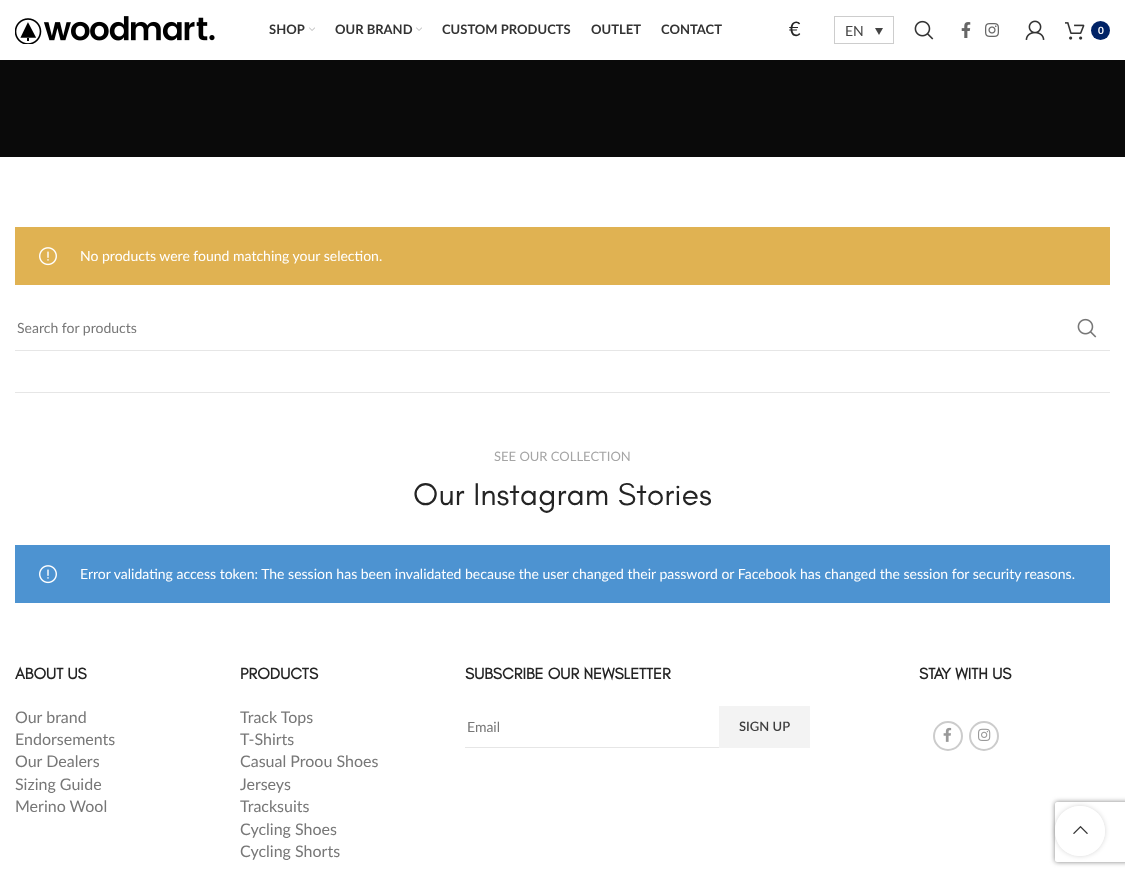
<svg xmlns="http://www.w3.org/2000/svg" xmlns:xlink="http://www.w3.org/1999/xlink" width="1125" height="876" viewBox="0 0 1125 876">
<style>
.cls-1{font:bold 13px Lato;fill:#333333}
.cls-2{font:20px Lato;fill:#242424}
.cls-3{font:14px Lato;fill:#444444}
.cls-4{font:bold 10px Lato;fill:#ffffff}
.cls-5{font:14px Lato;fill:#ffffff}
.cls-6{font:14px Lato;fill:#777777}
.cls-7{font:13px Lato;fill:#a5a5a5}
.cls-8{font:32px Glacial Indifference;fill:#242424}
.cls-9{font:bold 16px Glacial Indifference;fill:#242424}
.cls-10{font:16px Lato;fill:#777777}
.cls-11{font:600 13px Lato;fill:#3e3e3e}
</style>
<defs>
<clipPath id="clip1"><path d="M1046 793H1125V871H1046ZM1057 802H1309C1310 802 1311 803 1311 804V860C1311 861 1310 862 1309 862H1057C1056 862 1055 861 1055 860V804C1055 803 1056 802 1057 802Z" clip-rule="evenodd"/></clipPath>
<clipPath id="clip2"><path d="M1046 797H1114V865H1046ZM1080 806C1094 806 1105 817 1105 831C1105 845 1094 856 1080 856C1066 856 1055 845 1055 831C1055 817 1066 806 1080 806Z" clip-rule="evenodd"/></clipPath>
</defs>
<rect width="100%" height="100%" fill="#ffffff"/>
<image xlink:href="image0.png" x="15" y="16" width="200" height="28"/>
<image xlink:href="image1.png" x="309" y="27" width="6" height="4"/>
<image xlink:href="image1.png" x="416" y="27" width="6" height="4"/>
<rect fill="none" stroke="#cdcdcd" x="834.5" y="16.5" width="59" height="27"/>
<path fill="#444444" d="M875 28H883L879 35Z"/>
<image xlink:href="image2.png" x="914" y="20" width="20" height="20"/>
<image xlink:href="image3.png" x="961" y="22" width="10" height="16"/>
<image xlink:href="image4.png" x="985" y="23" width="14" height="14"/>
<image xlink:href="image5.png" x="1025" y="20" width="20" height="20"/>
<image xlink:href="image6.png" x="1065" y="22" width="20" height="18"/>
<circle fill="#002366" cx="1100.5" cy="30.5" r="9.5"/>
<rect fill="#0a0a0a" x="0" y="60" width="1125" height="97"/>
<rect fill="#e0b252" x="15" y="227" width="1095" height="58"/>
<image xlink:href="image7.png" x="39" y="247" width="18" height="19"/>
<rect fill="#e6e6e6" x="15" y="350" width="1095" height="1"/>
<image xlink:href="image8.png" x="1077" y="318" width="20" height="20"/>
<rect fill="#e6e6e6" x="15" y="392" width="1095" height="1"/>
<rect fill="#4d93d1" x="15" y="545" width="1095" height="58"/>
<image xlink:href="image9.png" x="39" y="565" width="18" height="19"/>
<rect fill="#e6e6e6" x="465" y="747" width="254" height="1"/>
<rect fill="#f3f3f3" x="719" y="706" width="91" height="42"/>
<circle fill="none" stroke="#cccccc" stroke-width="2" cx="948" cy="736" r="14"/>
<image xlink:href="image10.png" x="943" y="727" width="9" height="15"/>
<circle fill="none" stroke="#cccccc" stroke-width="2" cx="984" cy="736" r="14"/>
<image xlink:href="image11.png" x="978" y="728" width="13" height="13"/>
<g clip-path="url(#clip1)">
<rect fill="#808080" filter="blur(2.5px)" x="1055" y="802" width="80" height="60" rx="2"/>
</g>
<g clip-path="url(#clip2)">
<rect fill="#000000" fill-opacity="0.17" filter="blur(2.5px)" x="1055" y="806" width="50" height="50" rx="25"/>
</g>
<circle fill="#ffffff" fill-opacity="0.9" cx="1080" cy="831" r="25"/>
<image xlink:href="image12.png" x="1073" y="825" width="15" height="9"/>
<text class="cls-1" x="269" y="34">SHOP</text>
<text class="cls-1" x="335" y="34">OUR BRAND</text>
<text class="cls-1" x="442" y="34">CUSTOM PRODUCTS</text>
<text class="cls-1" x="591" y="34">OUTLET</text>
<text class="cls-1" x="661" y="34">CONTACT</text>
<text class="cls-2" x="789" y="36">€</text>
<text class="cls-3" x="845" y="36">EN</text>
<text class="cls-4" x="1098" y="34">0</text>
<text class="cls-5" x="80" y="261">No products were found matching your selection.</text>
<text class="cls-6" x="17" y="333">Search for products</text>
<text class="cls-7" x="494" y="461">SEE OUR COLLECTION</text>
<text class="cls-8" x="413" y="505">Our Instagram Stories</text>
<text class="cls-5" x="80" y="579">Error validating access token: The session has been invalidated because the user changed their password or Facebook has changed the session for security reasons.</text>
<text class="cls-9" x="15" y="679">ABOUT US</text>
<text class="cls-10"><tspan x="15" y="723">Our brand</tspan><tspan x="15" y="745">Endorsements</tspan><tspan x="15" y="767">Our Dealers</tspan><tspan x="15" y="790">Sizing Guide</tspan><tspan x="15" y="812">Merino Wool</tspan></text>
<text class="cls-9" x="240" y="679">PRODUCTS</text>
<text class="cls-10"><tspan x="240" y="723">Track Tops</tspan><tspan x="240" y="745">T-Shirts</tspan><tspan x="240" y="767">Casual Proou Shoes</tspan><tspan x="240" y="790">Jerseys</tspan><tspan x="240" y="812">Tracksuits</tspan><tspan x="240" y="835">Cycling Shoes</tspan><tspan x="240" y="857">Cycling Shorts</tspan></text>
<text class="cls-9" x="465" y="679">SUBSCRIBE OUR NEWSLETTER</text>
<text class="cls-6" x="467" y="732">Email</text>
<text class="cls-11" x="739" y="731">SIGN UP</text>
<text class="cls-9" x="919" y="679">STAY WITH US</text>
</svg>
